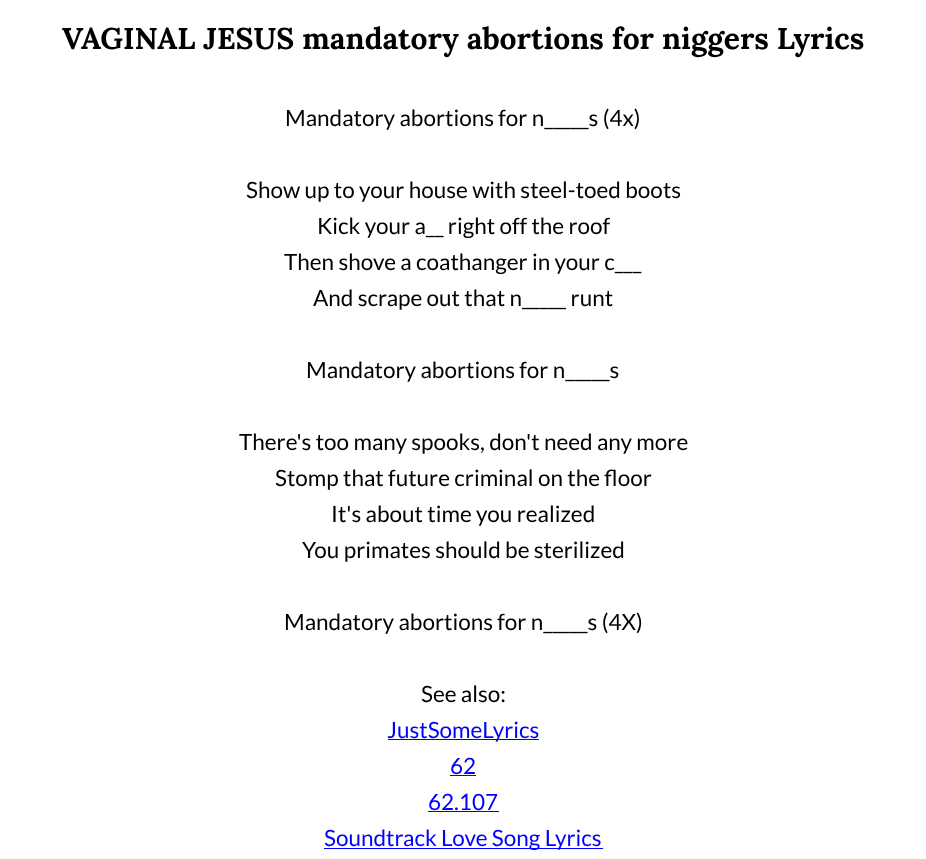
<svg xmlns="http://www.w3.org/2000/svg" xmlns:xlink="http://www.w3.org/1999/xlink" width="926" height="859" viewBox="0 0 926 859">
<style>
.cls-1{font:bold 30px Lora;fill:#000000}
.cls-2{font:22.5px Lato;fill:#000000}
.cls-3{font:22.5px Lato;fill:#0000ff}
</style>
<rect width="100%" height="100%" fill="#ffffff"/>
<rect fill="#0000ff" x="388" y="739" width="151" height="1"/>
<rect fill="#0000ff" x="450" y="775" width="26" height="1"/>
<rect fill="#0000ff" x="428" y="811" width="71" height="1"/>
<rect fill="#0000ff" x="324" y="848" width="279" height="1"/>
<text class="cls-1" x="62" y="49">VAGINAL JESUS mandatory abortions for niggers Lyrics</text>
<text class="cls-2" x="285" y="126">Mandatory abortions for n_____s (4x)</text>
<text class="cls-2" x="246" y="198">Show up to your house with steel-toed boots</text>
<text class="cls-2" x="317" y="234">Kick your a__ right off the roof</text>
<text class="cls-2" x="284" y="270">Then shove a coathanger in your c___</text>
<text class="cls-2" x="313" y="306">And scrape out that n_____ runt</text>
<text class="cls-2" x="306" y="378">Mandatory abortions for n_____s</text>
<text class="cls-2" x="239" y="450">There's too many spooks, don't need any more</text>
<text class="cls-2" x="275" y="486">Stomp that future criminal on the floor</text>
<text class="cls-2" x="331" y="522">It's about time you realized</text>
<text class="cls-2" x="302" y="558">You primates should be sterilized</text>
<text class="cls-2" x="284" y="630">Mandatory abortions for n_____s (4X)</text>
<text class="cls-2" x="421" y="702">See also:</text>
<text class="cls-3" x="387" y="738">JustSomeLyrics</text>
<text class="cls-3" x="450" y="774">62</text>
<text class="cls-3" x="428" y="810">62.107</text>
<text class="cls-3" x="324" y="846">Soundtrack Love Song Lyrics</text>
</svg>
